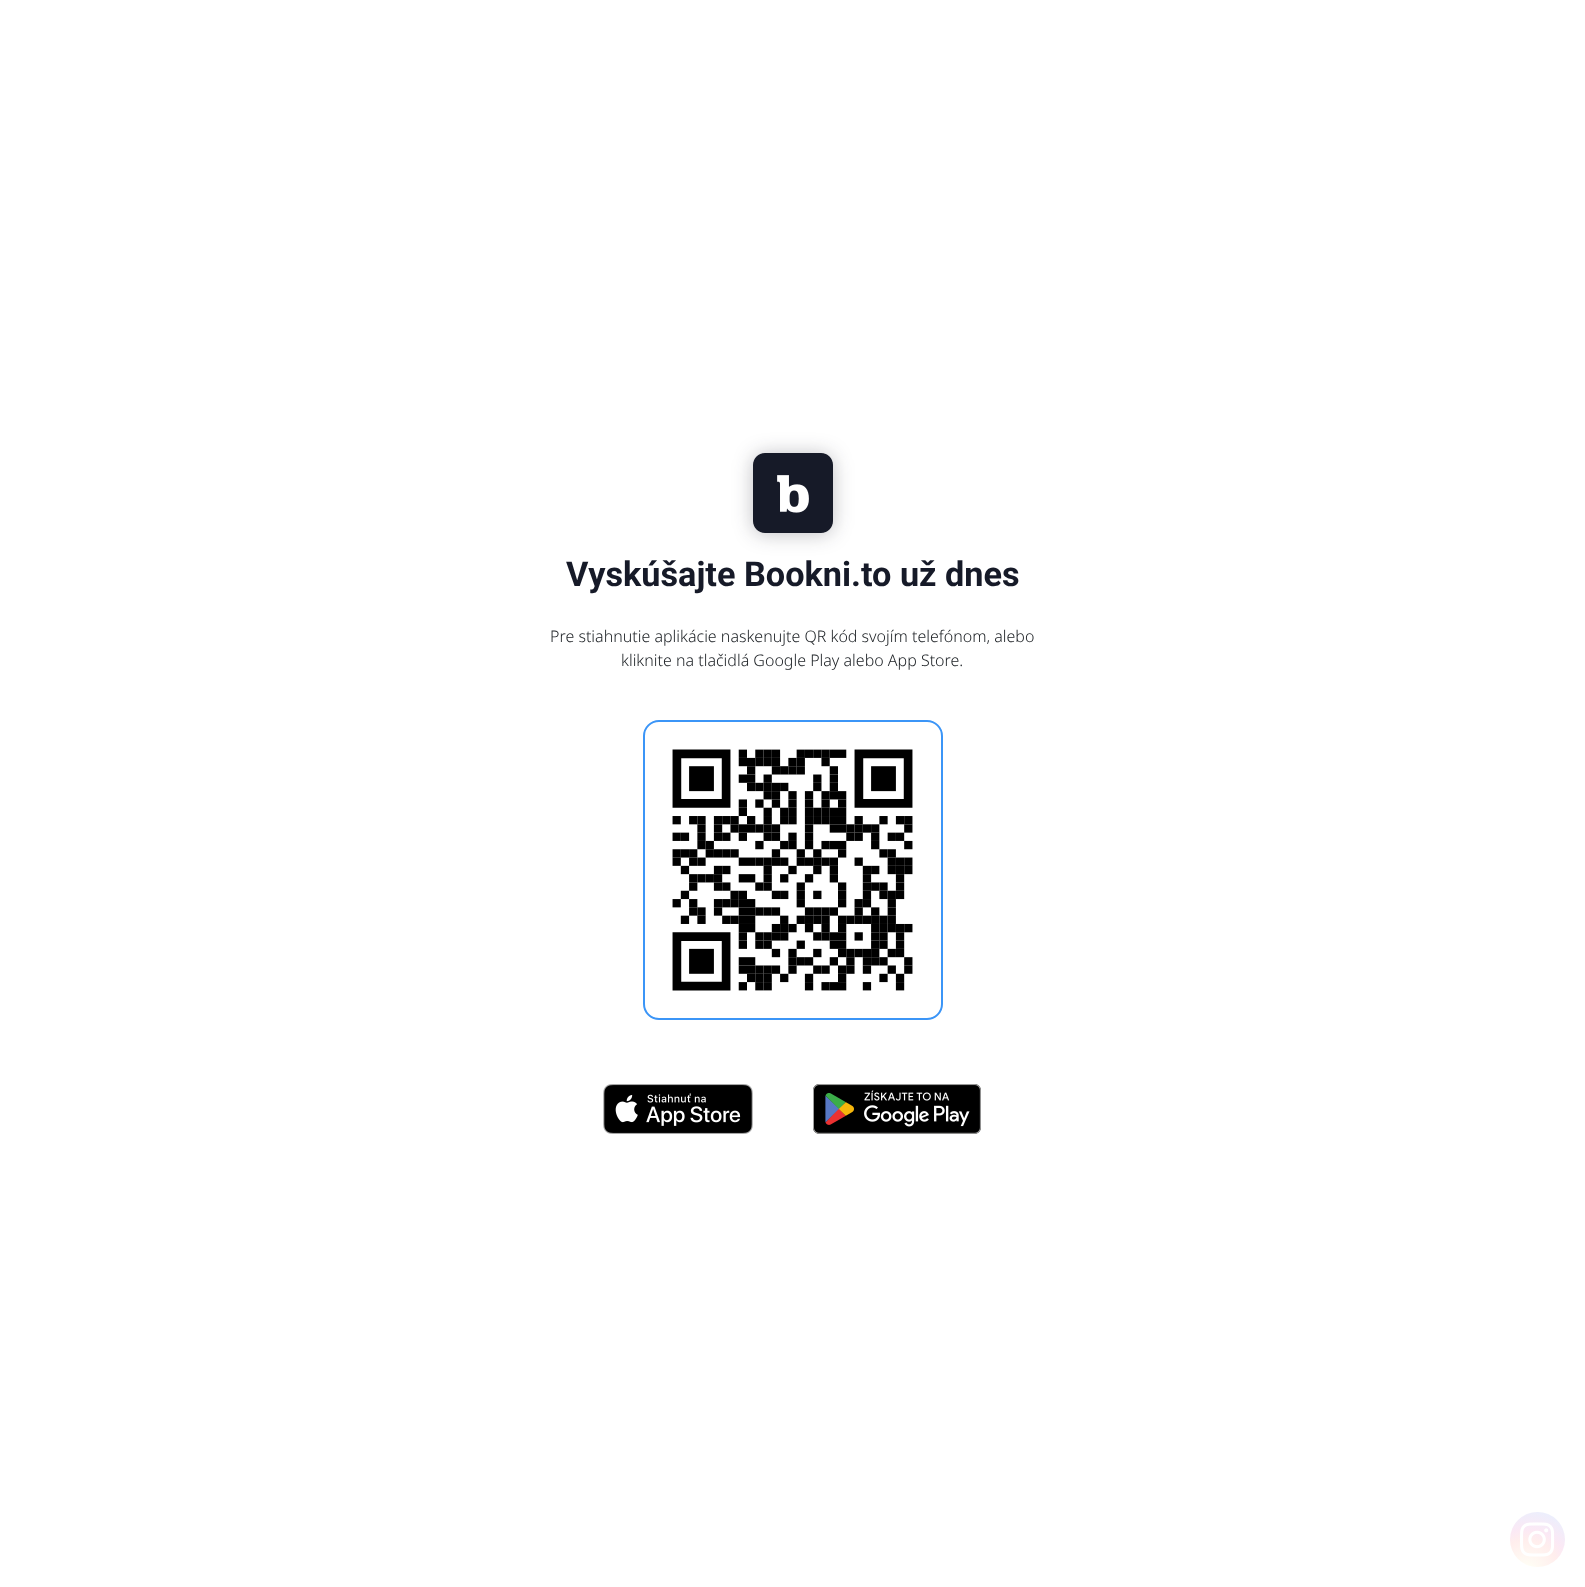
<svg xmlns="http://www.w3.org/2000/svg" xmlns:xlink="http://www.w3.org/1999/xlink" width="1585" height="1587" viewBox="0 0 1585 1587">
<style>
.cls-1{font:bold 34.25px Roboto;fill:#161a28}
.cls-2{font:300 16px Noto Sans;fill:#212529}
</style>
<defs>
<radialGradient id="g1" gradientUnits="userSpaceOnUse" cx="1527" cy="1571" r="70"><stop offset="0" stop-color="#fffef5"/><stop offset="0.05" stop-color="#fffef5"/><stop offset="0.45" stop-color="#ffeeed"/><stop offset="0.6" stop-color="#fbe9f5"/><stop offset="0.9" stop-color="#eaeffd"/></radialGradient>
</defs>
<rect width="100%" height="100%" fill="#ffffff"/>
<rect fill="#1a1a29" fill-opacity="0.28" filter="blur(10px)" x="753" y="454" width="80" height="80" rx="12"/>
<image xlink:href="image0.png" x="753" y="453" width="80" height="80"/>
<rect fill="none" stroke="#3b95f7" stroke-width="2" x="644" y="721" width="298" height="298" rx="15"/>
<image xlink:href="image1.png" x="672" y="749" width="241" height="242"/>
<image xlink:href="image2.png" x="603" y="1084" width="150" height="50"/>
<image xlink:href="image3.png" x="813" y="1084" width="168" height="50"/>
<circle fill="url(#g1)" cx="1537.5" cy="1539.5" r="27.5"/>
<image xlink:href="image4.png" x="1520" y="1522" width="35" height="35"/>
<text class="cls-1" x="566" y="586">Vyskúšajte Bookni.to už dnes</text>
<text class="cls-2" x="550" y="642">Pre stiahnutie aplikácie naskenujte QR kód svojím telefónom, alebo</text>
<text class="cls-2" x="621" y="666">kliknite na tlačidlá Google Play alebo App Store.</text>
</svg>
